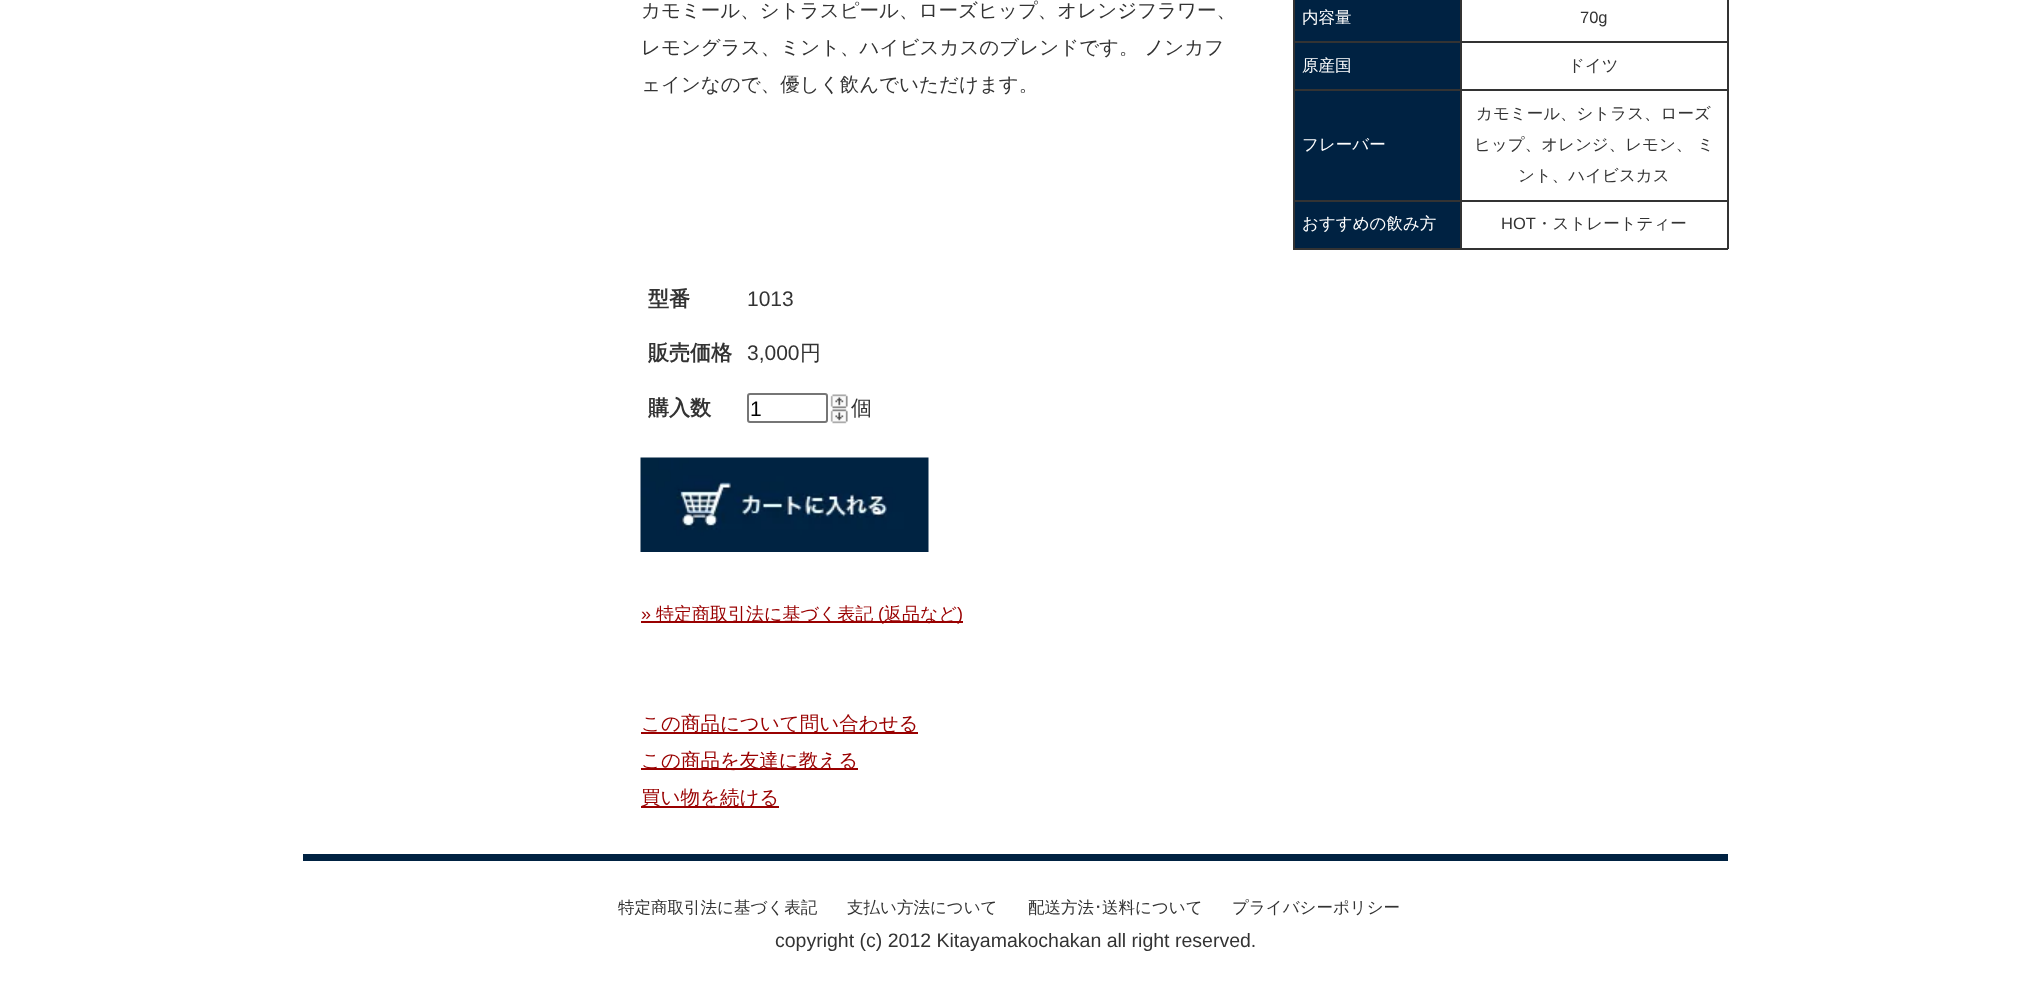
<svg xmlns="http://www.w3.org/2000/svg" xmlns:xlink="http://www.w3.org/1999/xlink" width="2031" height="989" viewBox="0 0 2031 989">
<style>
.cls-1{font:500 19.5px WenQuanYi Zen Hei;fill:#333333}
.cls-2{font:500 16.5px WenQuanYi Zen Hei;fill:#ffffff}
.cls-3{font:16.5px Liberation Sans;fill:#333333}
.cls-4{font:500 16.5px WenQuanYi Zen Hei;fill:#333333}
.cls-5{font:bold 21px WenQuanYi Zen Hei;fill:#333333}
.cls-6{font:21px Liberation Sans;fill:#333333}
.cls-7{font:500 21px WenQuanYi Zen Hei;fill:#333333}
.cls-8{font:21px Liberation Sans;fill:#000000}
.cls-9{font:18px Liberation Sans;fill:#990000}
.cls-10{font:500 18px WenQuanYi Zen Hei;fill:#990000}
.cls-11{font:500 19.5px WenQuanYi Zen Hei;fill:#990000}
.cls-12{font:16.5px IPAPGothic;fill:#333333}
.cls-13{font:19.5px Liberation Sans;fill:#333333}
</style>
<rect width="100%" height="100%" fill="#ffffff"/>
<rect fill="#333333" x="1727" y="0" width="2" height="249"/>
<rect fill="#333333" x="1293" y="248" width="435" height="2"/>
<rect fill="#333333" x="1293" y="0" width="2" height="249"/>
<rect fill="#002242" x="1295" y="0" width="165" height="41"/>
<rect fill="#333333" x="1460" y="41" width="268" height="2"/>
<rect fill="#333333" x="1460" y="89" width="268" height="2"/>
<rect fill="#333333" x="1460" y="200" width="268" height="2"/>
<rect fill="#333333" x="1460" y="200" width="2" height="49"/>
<rect fill="#333333" x="1293" y="200" width="168" height="2"/>
<rect fill="#333333" x="1460" y="89" width="2" height="112"/>
<rect fill="#333333" x="1293" y="89" width="168" height="2"/>
<rect fill="#333333" x="1460" y="41" width="2" height="49"/>
<rect fill="#333333" x="1293" y="41" width="168" height="2"/>
<rect fill="#333333" x="1460" y="0" width="2" height="42"/>
<rect fill="#002242" x="1295" y="43" width="165" height="46"/>
<rect fill="#002242" x="1295" y="91" width="165" height="109"/>
<rect fill="#002242" x="1295" y="202" width="165" height="46"/>
<rect fill="none" stroke="#767676" stroke-width="2" x="748" y="394" width="79" height="28" rx="2"/>
<image xlink:href="image0.png" x="830" y="394" width="18" height="15"/>
<image xlink:href="image1.png" x="830" y="409" width="18" height="15"/>
<image xlink:href="image2.png" x="640" y="457" width="289" height="95"/>
<rect fill="#990000" x="641" y="621" width="322" height="2"/>
<rect fill="#990000" x="641" y="732" width="277" height="2"/>
<rect fill="#990000" x="641" y="768" width="217" height="2"/>
<rect fill="#990000" x="641" y="806" width="138" height="2"/>
<rect fill="#002242" x="303" y="854" width="1425" height="7"/>
<text class="cls-1"><tspan x="641" y="17">カモミール、シトラスピール、ローズヒップ、オレンジフラワー、</tspan><tspan x="641" y="54">レモングラス、ミント、ハイビスカスのブレンドです。 ノンカフ</tspan><tspan x="641" y="91">ェインなので、優しく飲んでいただけます。</tspan></text>
<text class="cls-2" x="1302" y="23">内容量</text>
<text class="cls-3" x="1580" y="23">70g</text>
<text class="cls-2" x="1302" y="71">原産国</text>
<text class="cls-4" x="1568" y="71">ドイツ</text>
<text class="cls-2" x="1302" y="150">フレーバー</text>
<text class="cls-4" x="1476" y="119">カモミール、シトラス、ローズ</text>
<text class="cls-4" x="1474" y="150">ヒップ、オレンジ、レモン、 ミ</text>
<text class="cls-4" x="1518" y="181">ント、ハイビスカス</text>
<text class="cls-2" x="1302" y="229">おすすめの飲み方</text>
<text class="cls-3" x="1501" y="229">HOT</text>
<text class="cls-4" x="1536" y="229">・ストレートティー</text>
<text class="cls-5" x="648" y="306">型番</text>
<text class="cls-6" x="747" y="306">1013</text>
<text class="cls-5" x="648" y="360">販売価格</text>
<text class="cls-6" x="747" y="360">3,000</text>
<text class="cls-7" x="800" y="360">円</text>
<text class="cls-5" x="648" y="415">購入数</text>
<text class="cls-8" x="750" y="416">1</text>
<text class="cls-7" x="851" y="415">個</text>
<text class="cls-9" x="641" y="620">»</text>
<text class="cls-10" x="656" y="620">特定商取引法に基づく表記</text>
<text class="cls-9" x="878" y="620">(</text>
<text class="cls-10" x="884" y="620">返品など</text>
<text class="cls-9" x="957" y="620">)</text>
<text class="cls-11"><tspan x="641" y="730">この商品について問い合わせる</tspan><tspan x="641" y="767">この商品を友達に教える</tspan><tspan x="641" y="804">買い物を続ける</tspan></text>
<text class="cls-4" x="618" y="913">特定商取引法に基づく表記</text>
<text class="cls-4" x="847" y="913">支払い方法について</text>
<text class="cls-4" x="1028" y="913">配送方法</text>
<text class="cls-12" x="1094" y="913">･</text>
<text class="cls-4" x="1102" y="913">送料について</text>
<text class="cls-4" x="1232" y="913">プライバシーポリシー</text>
<text class="cls-13" x="775" y="947">copyright (c) 2012 Kitayamakochakan all right reserved.</text>
</svg>
